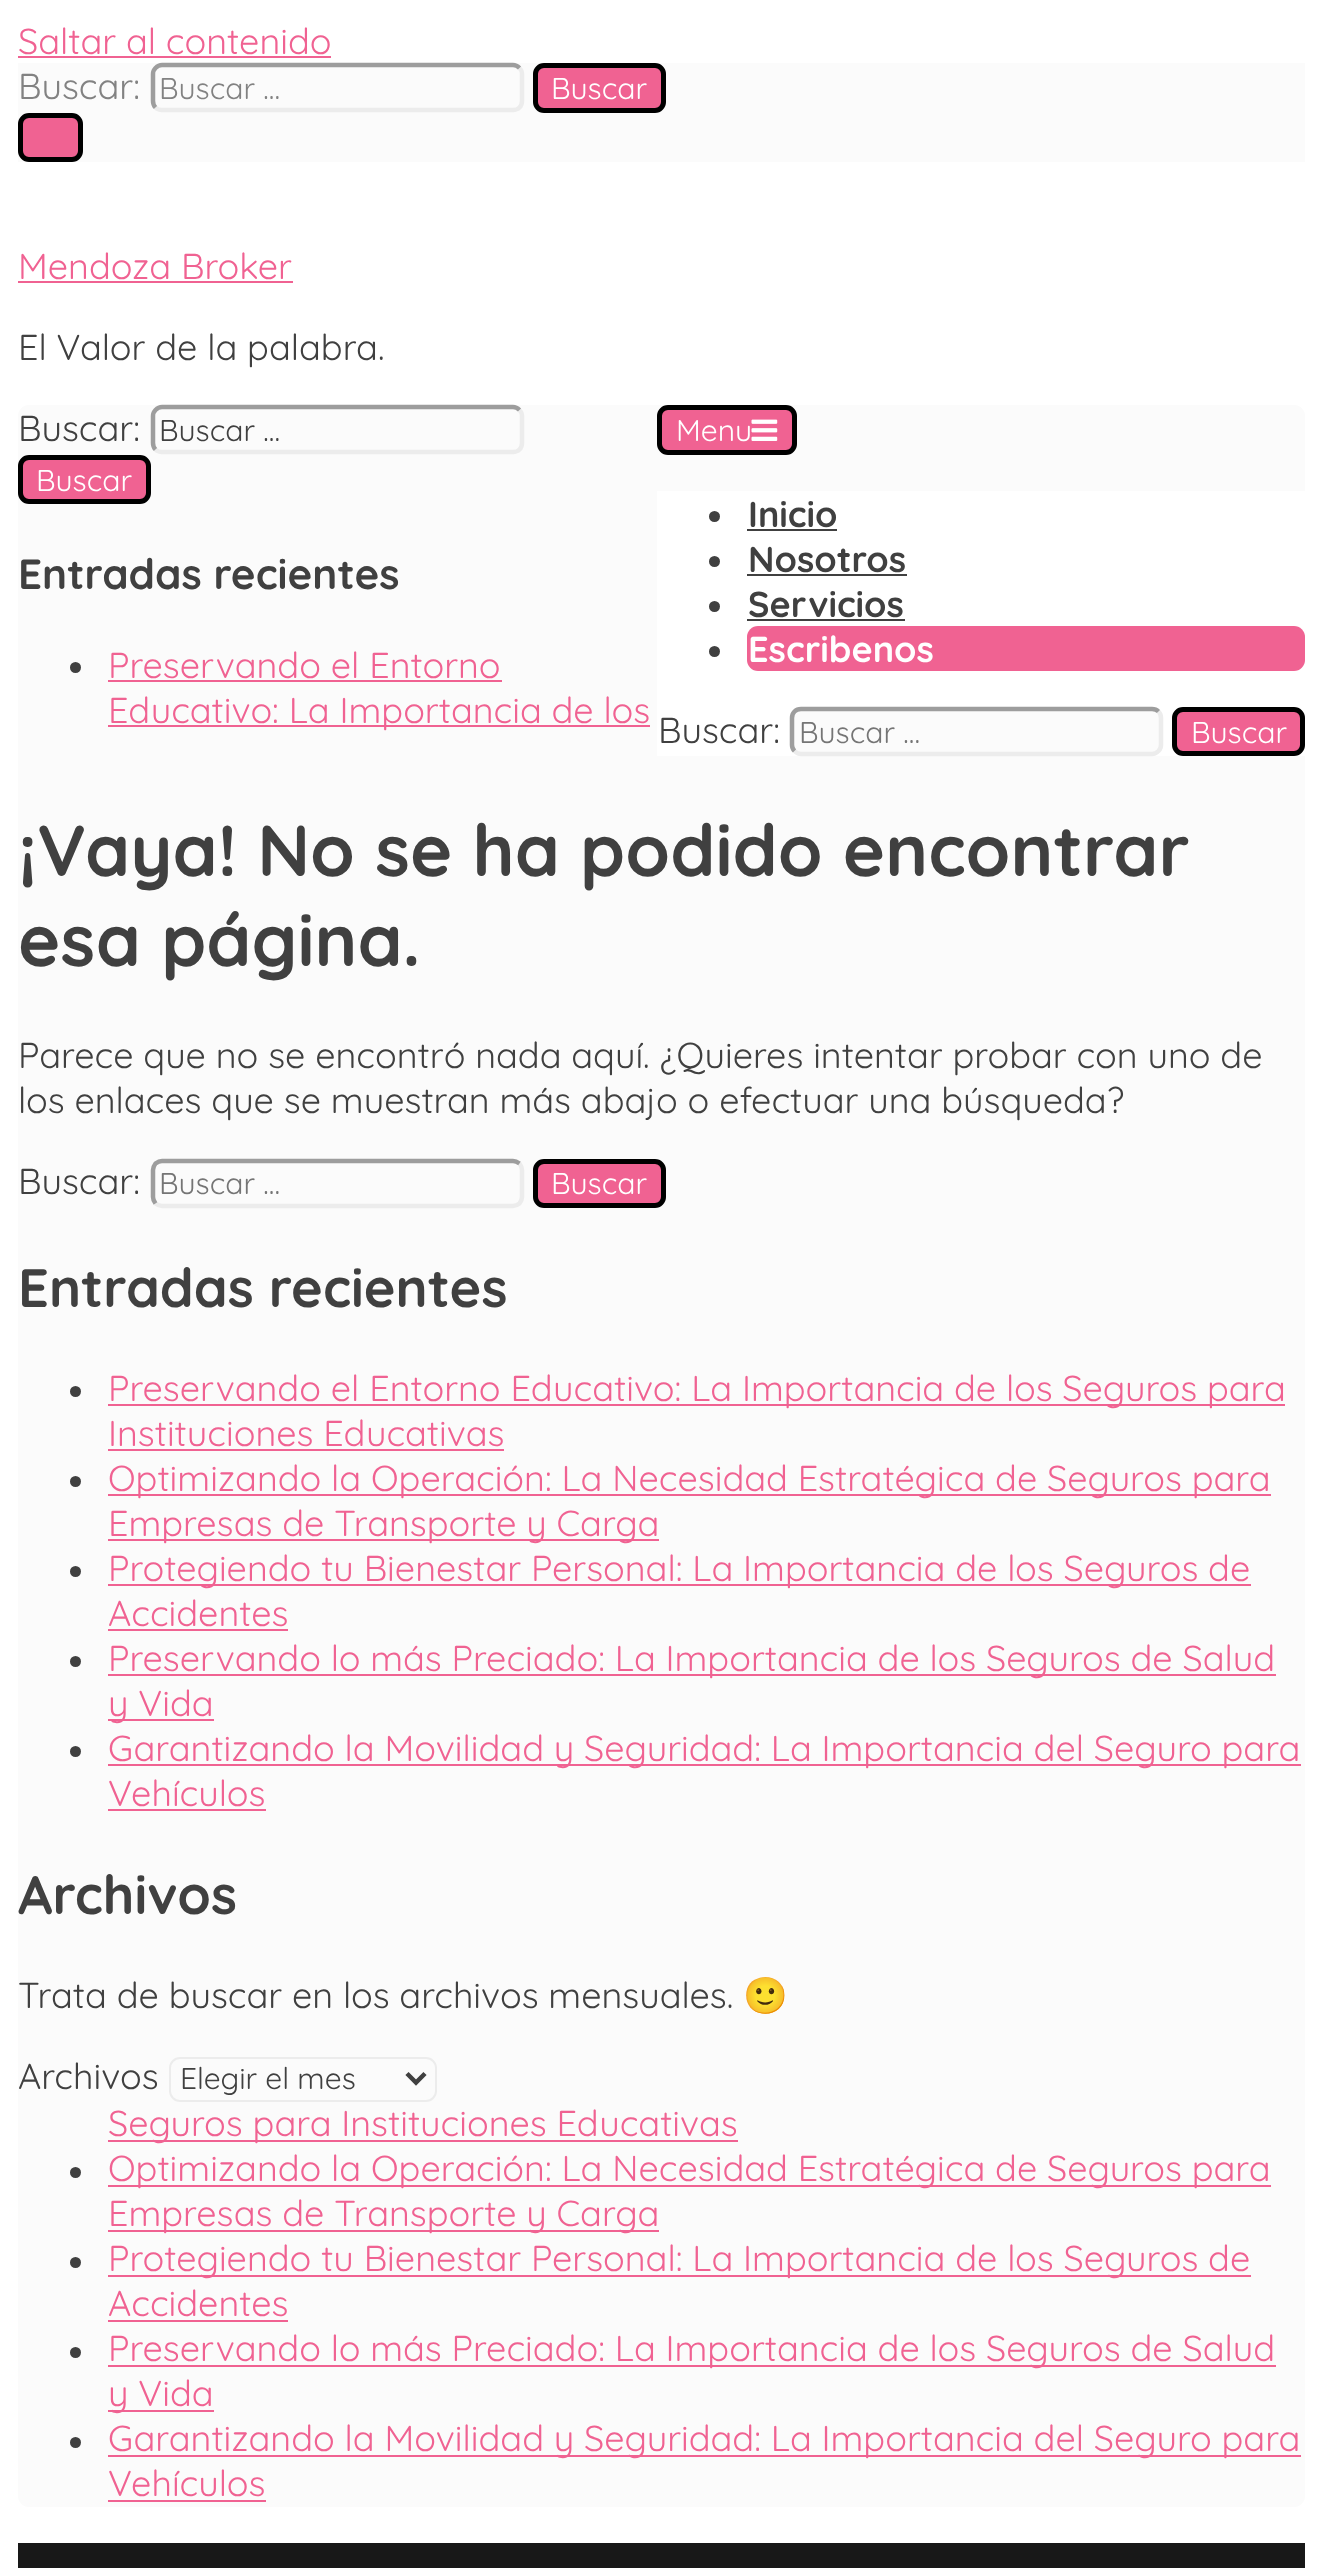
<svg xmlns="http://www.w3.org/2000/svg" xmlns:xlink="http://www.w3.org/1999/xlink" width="1322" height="2568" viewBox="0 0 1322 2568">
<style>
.cls-1{font:36px Quicksand;fill:#f06292}
.cls-2{font:36px Quicksand;fill:#828282}
.cls-3{font:30px Quicksand;fill:#828282}
.cls-4{font:30px Quicksand;fill:#ffffff}
.cls-5{font:36px Quicksand;fill:#404040}
.cls-6{font:bold 36px Quicksand;fill:#404040}
.cls-7{font:bold 36px Quicksand;fill:#ffffff}
.cls-8{font:30px Quicksand;fill:#757575}
.cls-9{font:30px Quicksand;fill:#404040}
.cls-10{font:bold 42.1px Quicksand;fill:#404040}
.cls-11{font:bold 72px Quicksand;fill:#404040}
.cls-12{font:bold 54px Quicksand;fill:#404040}
.cls-13{font:36px Noto Color Emoji;fill:#404040}
</style>
<rect width="100%" height="100%" fill="#ffffff"/>
<rect fill="#f06292" x="18" y="56" width="313" height="2"/>
<rect fill="#fbfbfb" x="18" y="63" width="1287" height="99"/>
<path fill="none" stroke="#ececec" stroke-width="4.5" d="M519.5 68C521 69.5 522 72 522 74V101C522 103.5 521 106 519.5 107.5C517.5 109.5 515.5 110 513 110H162C159.5 110 157.5 109.5 155.5 107.5"/>
<path fill="none" stroke="#9d9d9d" stroke-width="4.5" d="M155.5 107.5C154 106 153 103.5 153 101V74C153 72 154 69.5 155.5 68C157.5 66 159.5 65 162 65H513C515.5 65 517.5 66 519.5 68"/>
<rect fill="#f06292" stroke="#000000" stroke-width="5" x="535.5" y="65.5" width="128" height="45" rx="8.5"/>
<rect fill="#f06292" stroke="#000000" stroke-width="5" x="20.5" y="115.5" width="60" height="44" rx="8.5"/>
<rect fill="#f06292" x="18" y="281" width="275" height="2"/>
<rect fill="#fbfbfb" x="18" y="405" width="1287" height="2102" rx="11"/>
<rect fill="#f06292" stroke="#000000" stroke-width="5" x="659.5" y="407.5" width="135" height="45" rx="8.5"/>
<image xlink:href="image0.png" x="751" y="419" width="27" height="22"/>
<rect fill="#ffffff" x="657" y="491" width="648" height="265"/>
<circle fill="#404040" cx="714.5" cy="516.5" r="5.5"/>
<rect fill="#404040" x="747" y="529" width="90" height="2"/>
<circle fill="#404040" cx="714.5" cy="561.5" r="5.5"/>
<rect fill="#404040" x="747" y="574" width="160" height="2"/>
<circle fill="#404040" cx="714.5" cy="606.5" r="5.5"/>
<rect fill="#404040" x="747" y="619" width="158" height="2"/>
<rect fill="#f06292" x="747" y="626" width="558" height="45" rx="11"/>
<circle fill="#404040" cx="714.5" cy="651.5" r="5.5"/>
<rect fill="#fbfbfb" x="790" y="707" width="373" height="49" rx="11"/>
<path fill="none" stroke="#ececec" stroke-width="4.5" d="M1158.5 711.5C1160 713 1161 715.5 1161 718V745C1161 747 1160 749.5 1158.5 751C1156.5 753 1154.5 754 1152 754H801C798.5 754 796.5 753 794.5 751"/>
<path fill="none" stroke="#9d9d9d" stroke-width="4.5" d="M794.5 751C793 749.5 792 747 792 745V718C792 715.5 793 713 794.5 711.5C796.5 709.5 798.5 709 801 709H1152C1154.5 709 1156.5 709.5 1158.5 711.5"/>
<rect fill="#f06292" stroke="#000000" stroke-width="5" x="1174.5" y="709.5" width="128" height="44" rx="8.5"/>
<path fill="none" stroke="#ececec" stroke-width="4.5" d="M519.5 410C521 411.5 522 414 522 416V443C522 445.5 521 448 519.5 449.5C517.5 451.5 515.5 452 513 452H162C159.5 452 157.5 451.5 155.5 449.5"/>
<path fill="none" stroke="#9d9d9d" stroke-width="4.5" d="M155.5 449.5C154 448 153 445.5 153 443V416C153 414 154 411.5 155.5 410C157.5 408 159.5 407 162 407H513C515.5 407 517.5 408 519.5 410"/>
<rect fill="#f06292" stroke="#000000" stroke-width="5" x="20.5" y="457.5" width="128" height="44" rx="8.5"/>
<circle fill="#404040" cx="75.5" cy="667.5" r="5.5"/>
<rect fill="#f06292" x="108" y="680" width="394" height="2"/>
<rect fill="#f06292" x="108" y="725" width="542" height="2"/>
<rect fill="#f06292" x="108" y="2140" width="630" height="2"/>
<circle fill="#404040" cx="75.5" cy="2172.5" r="5.5"/>
<rect fill="#f06292" x="108" y="2185" width="1163" height="2"/>
<rect fill="#f06292" x="108" y="2230" width="551" height="2"/>
<circle fill="#404040" cx="75.5" cy="2262.5" r="5.5"/>
<rect fill="#f06292" x="108" y="2275" width="1143" height="2"/>
<rect fill="#f06292" x="108" y="2320" width="180" height="2"/>
<circle fill="#404040" cx="75.5" cy="2352.5" r="5.5"/>
<rect fill="#f06292" x="108" y="2365" width="1168" height="2"/>
<rect fill="#f06292" x="108" y="2410" width="106" height="2"/>
<circle fill="#404040" cx="75.5" cy="2442.5" r="5.5"/>
<rect fill="#f06292" x="108" y="2455" width="1193" height="2"/>
<rect fill="#f06292" x="108" y="2500" width="158" height="2"/>
<path fill="none" stroke="#ececec" stroke-width="4.5" d="M519.5 1163.5C521 1165.5 522 1167.5 522 1170V1197C522 1199.5 521 1201.5 519.5 1203.5C517.5 1205 515.5 1206 513 1206H162C159.5 1206 157.5 1205 155.5 1203.5"/>
<path fill="none" stroke="#9d9d9d" stroke-width="4.5" d="M155.5 1203.5C154 1201.5 153 1199.5 153 1197V1170C153 1167.5 154 1165.5 155.5 1163.5C157.5 1162 159.5 1161 162 1161H513C515.5 1161 517.5 1162 519.5 1163.5"/>
<rect fill="#f06292" stroke="#000000" stroke-width="5" x="535.5" y="1161.5" width="128" height="44" rx="8.5"/>
<circle fill="#404040" cx="75.5" cy="1391.5" r="5.5"/>
<rect fill="#f06292" x="108" y="1404" width="1177" height="2"/>
<rect fill="#f06292" x="108" y="1449" width="396" height="2"/>
<circle fill="#404040" cx="75.5" cy="1481.5" r="5.5"/>
<rect fill="#f06292" x="108" y="1494" width="1163" height="2"/>
<rect fill="#f06292" x="108" y="1539" width="551" height="2"/>
<circle fill="#404040" cx="75.5" cy="1571.5" r="5.5"/>
<rect fill="#f06292" x="108" y="1584" width="1143" height="2"/>
<rect fill="#f06292" x="108" y="1629" width="180" height="2"/>
<circle fill="#404040" cx="75.5" cy="1661.5" r="5.5"/>
<rect fill="#f06292" x="108" y="1674" width="1168" height="2"/>
<rect fill="#f06292" x="108" y="1719" width="106" height="2"/>
<circle fill="#404040" cx="75.5" cy="1751.5" r="5.5"/>
<rect fill="#f06292" x="108" y="1764" width="1193" height="2"/>
<rect fill="#f06292" x="108" y="1809" width="158" height="2"/>
<rect fill="none" stroke="#ececec" stroke-width="2" x="170" y="2058" width="266" height="43" rx="10"/>
<path fill="none" stroke="#404040" stroke-width="4.5" d="M407 2073.5L416 2082.5L425 2073.5"/>
<rect fill="#181818" x="18" y="2543" width="1287" height="25"/>
<text class="cls-1" x="18" y="54">Saltar al contenido</text>
<text class="cls-2" x="18" y="99">Buscar:</text>
<text class="cls-3" x="159" y="99">Buscar …</text>
<text class="cls-4" x="551" y="99">Buscar</text>
<text class="cls-1" x="18" y="279">Mendoza Broker</text>
<text class="cls-5" x="18" y="360">El Valor de la palabra.</text>
<text class="cls-4" x="676" y="441">Menu</text>
<text class="cls-6"><tspan x="748" y="527">Inicio</tspan><tspan x="748" y="572">Nosotros</tspan><tspan x="748" y="617">Servicios</tspan></text>
<text class="cls-7" x="748" y="662">Escribenos</text>
<text class="cls-5" x="658" y="743">Buscar:</text>
<text class="cls-8" x="799" y="743">Buscar …</text>
<text class="cls-4" x="1191" y="743">Buscar</text>
<text class="cls-5" x="18" y="441">Buscar:</text>
<text class="cls-9" x="159" y="441">Buscar …</text>
<text class="cls-4" x="36" y="491">Buscar</text>
<text class="cls-10" x="18" y="589">Entradas recientes</text>
<text class="cls-1"><tspan x="108" y="678">Preservando el Entorno</tspan><tspan x="108" y="723">Educativo: La Importancia de los</tspan></text>
<text class="cls-1"><tspan x="108" y="2136">Seguros para Instituciones Educativas</tspan><tspan x="108" y="2181">Optimizando la Operación: La Necesidad Estratégica de Seguros para</tspan><tspan x="108" y="2226">Empresas de Transporte y Carga</tspan><tspan x="108" y="2271">Protegiendo tu Bienestar Personal: La Importancia de los Seguros de</tspan><tspan x="108" y="2316">Accidentes</tspan><tspan x="108" y="2361">Preservando lo más Preciado: La Importancia de los Seguros de Salud</tspan><tspan x="108" y="2406">y Vida</tspan><tspan x="108" y="2451">Garantizando la Movilidad y Seguridad: La Importancia del Seguro para</tspan><tspan x="108" y="2496">Vehículos</tspan></text>
<text class="cls-11"><tspan x="18" y="876">¡Vaya! No se ha podido encontrar</tspan><tspan x="18" y="966">esa página.</tspan></text>
<text class="cls-5"><tspan x="18" y="1068">Parece que no se encontró nada aquí. ¿Quieres intentar probar con uno de</tspan><tspan x="18" y="1113">los enlaces que se muestran más abajo o efectuar una búsqueda?</tspan></text>
<text class="cls-5" x="18" y="1194">Buscar:</text>
<text class="cls-8" x="159" y="1194">Buscar …</text>
<text class="cls-4" x="551" y="1194">Buscar</text>
<text class="cls-12" x="18" y="1307">Entradas recientes</text>
<text class="cls-1"><tspan x="108" y="1401">Preservando el Entorno Educativo: La Importancia de los Seguros para</tspan><tspan x="108" y="1446">Instituciones Educativas</tspan><tspan x="108" y="1491">Optimizando la Operación: La Necesidad Estratégica de Seguros para</tspan><tspan x="108" y="1536">Empresas de Transporte y Carga</tspan><tspan x="108" y="1581">Protegiendo tu Bienestar Personal: La Importancia de los Seguros de</tspan><tspan x="108" y="1626">Accidentes</tspan><tspan x="108" y="1671">Preservando lo más Preciado: La Importancia de los Seguros de Salud</tspan><tspan x="108" y="1716">y Vida</tspan><tspan x="108" y="1761">Garantizando la Movilidad y Seguridad: La Importancia del Seguro para</tspan><tspan x="108" y="1806">Vehículos</tspan></text>
<text class="cls-12" x="18" y="1914">Archivos</text>
<text class="cls-5" x="18" y="2008">Trata de buscar en los archivos mensuales.</text>
<text class="cls-13" x="743" y="2008">🙂</text>
<text class="cls-5" x="18" y="2089">Archivos</text>
<text class="cls-9" x="180" y="2089">Elegir el mes</text>
</svg>
